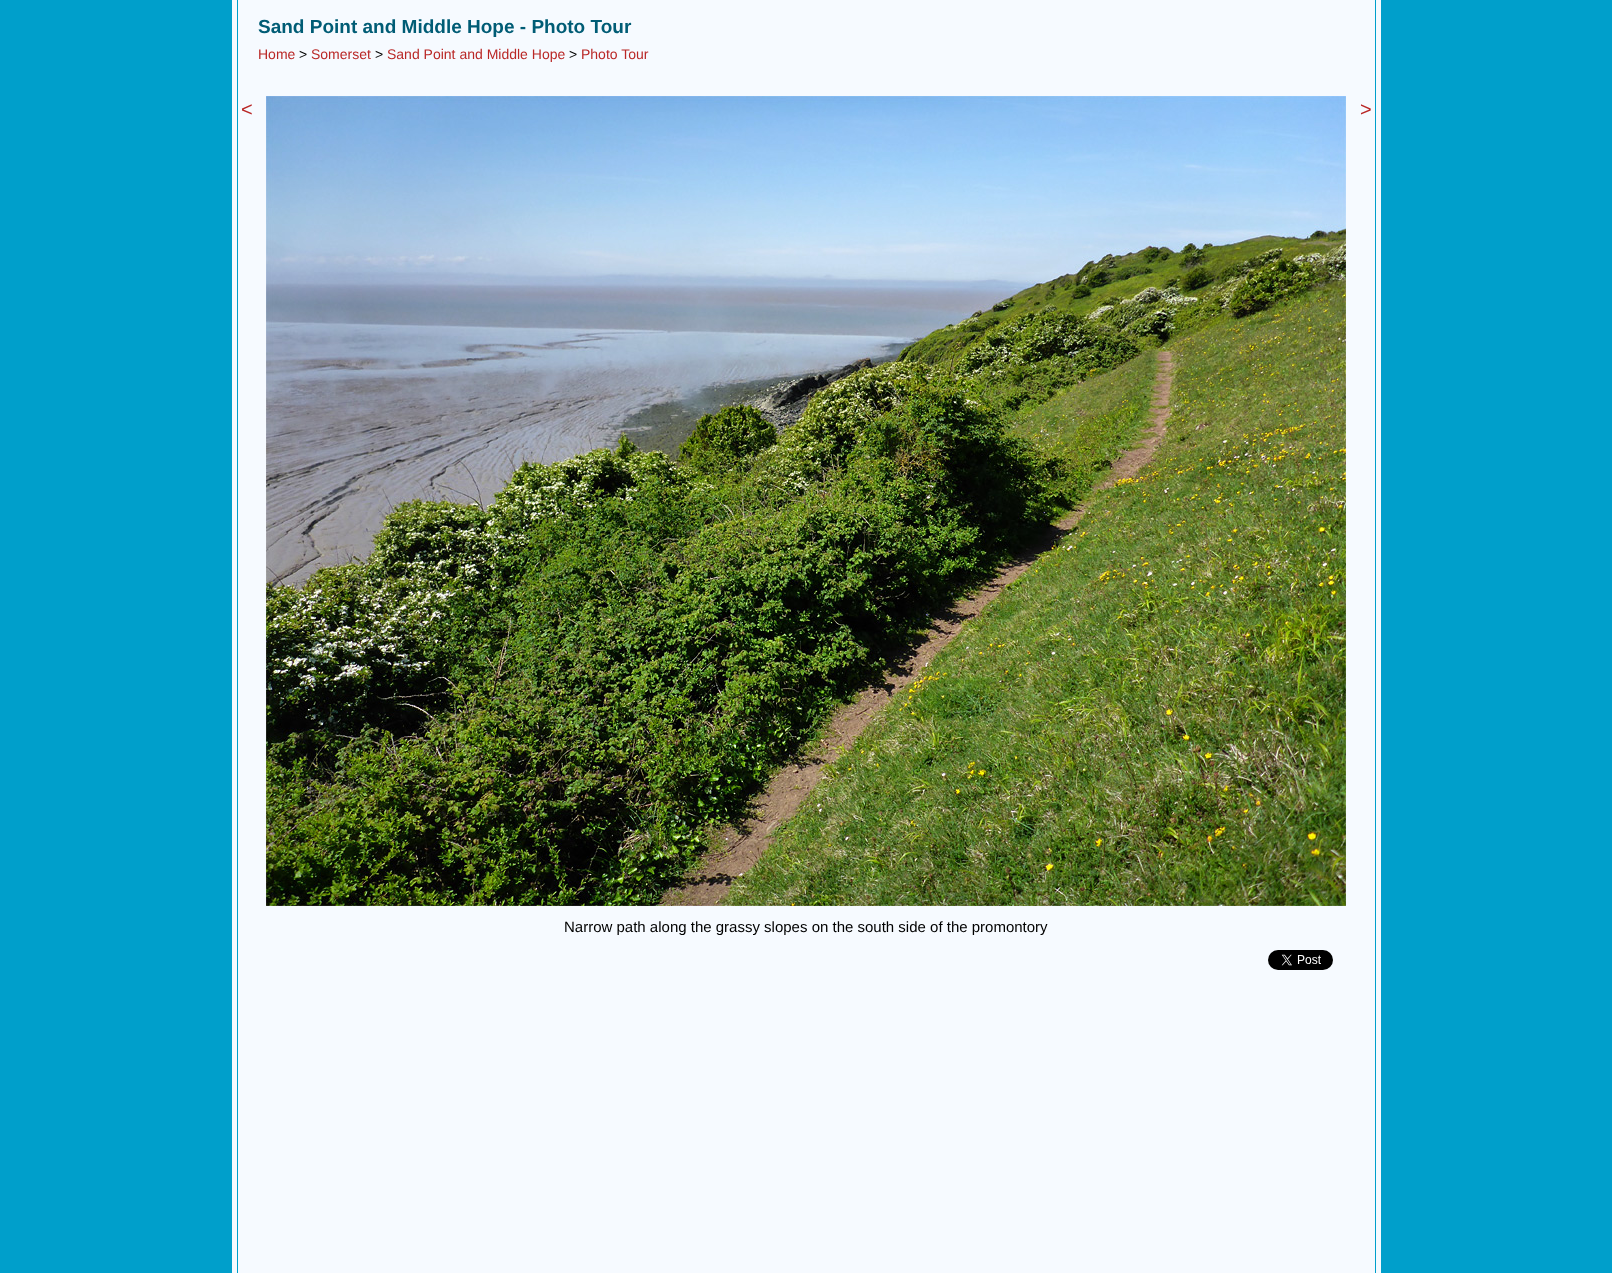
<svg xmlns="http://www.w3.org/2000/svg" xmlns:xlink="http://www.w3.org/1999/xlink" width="1612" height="1273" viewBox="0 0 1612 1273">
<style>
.cls-1{font:bold 19px Liberation Sans;fill:#005c75}
.cls-2{font:14px Liberation Sans;fill:#b92726}
.cls-3{font:14px Liberation Sans;fill:#000000}
.cls-4{font:20px Liberation Sans;fill:#b92726}
.cls-5{font:15px Liberation Sans;fill:#000000}
</style>
<rect width="100%" height="100%" fill="#009fcb"/>
<rect fill="#f6faff" x="232" y="0" width="1149" height="1273"/>
<rect fill="#009fcb" x="1375" y="0" width="1" height="1273"/>
<rect fill="#009fcb" x="237" y="0" width="1" height="1273"/>
<image xlink:href="image0.png" x="266" y="96" width="1080" height="810"/>
<image xlink:href="image1.png" x="1268" y="950" width="65" height="20"/>
<text class="cls-1" x="258" y="33">Sand Point and Middle Hope - Photo Tour</text>
<text class="cls-2" x="258" y="59">Home</text>
<text class="cls-3" x="299" y="59">&gt;</text>
<text class="cls-2" x="311" y="59">Somerset</text>
<text class="cls-3" x="375" y="59">&gt;</text>
<text class="cls-2" x="387" y="59">Sand Point and Middle Hope</text>
<text class="cls-3" x="569" y="59">&gt;</text>
<text class="cls-2" x="581" y="59">Photo Tour</text>
<text class="cls-4" x="241" y="116">&lt;</text>
<text class="cls-4" x="1360" y="116">&gt;</text>
<text class="cls-5" x="564" y="932">Narrow path along the grassy slopes on the south side of the promontory</text>
</svg>
